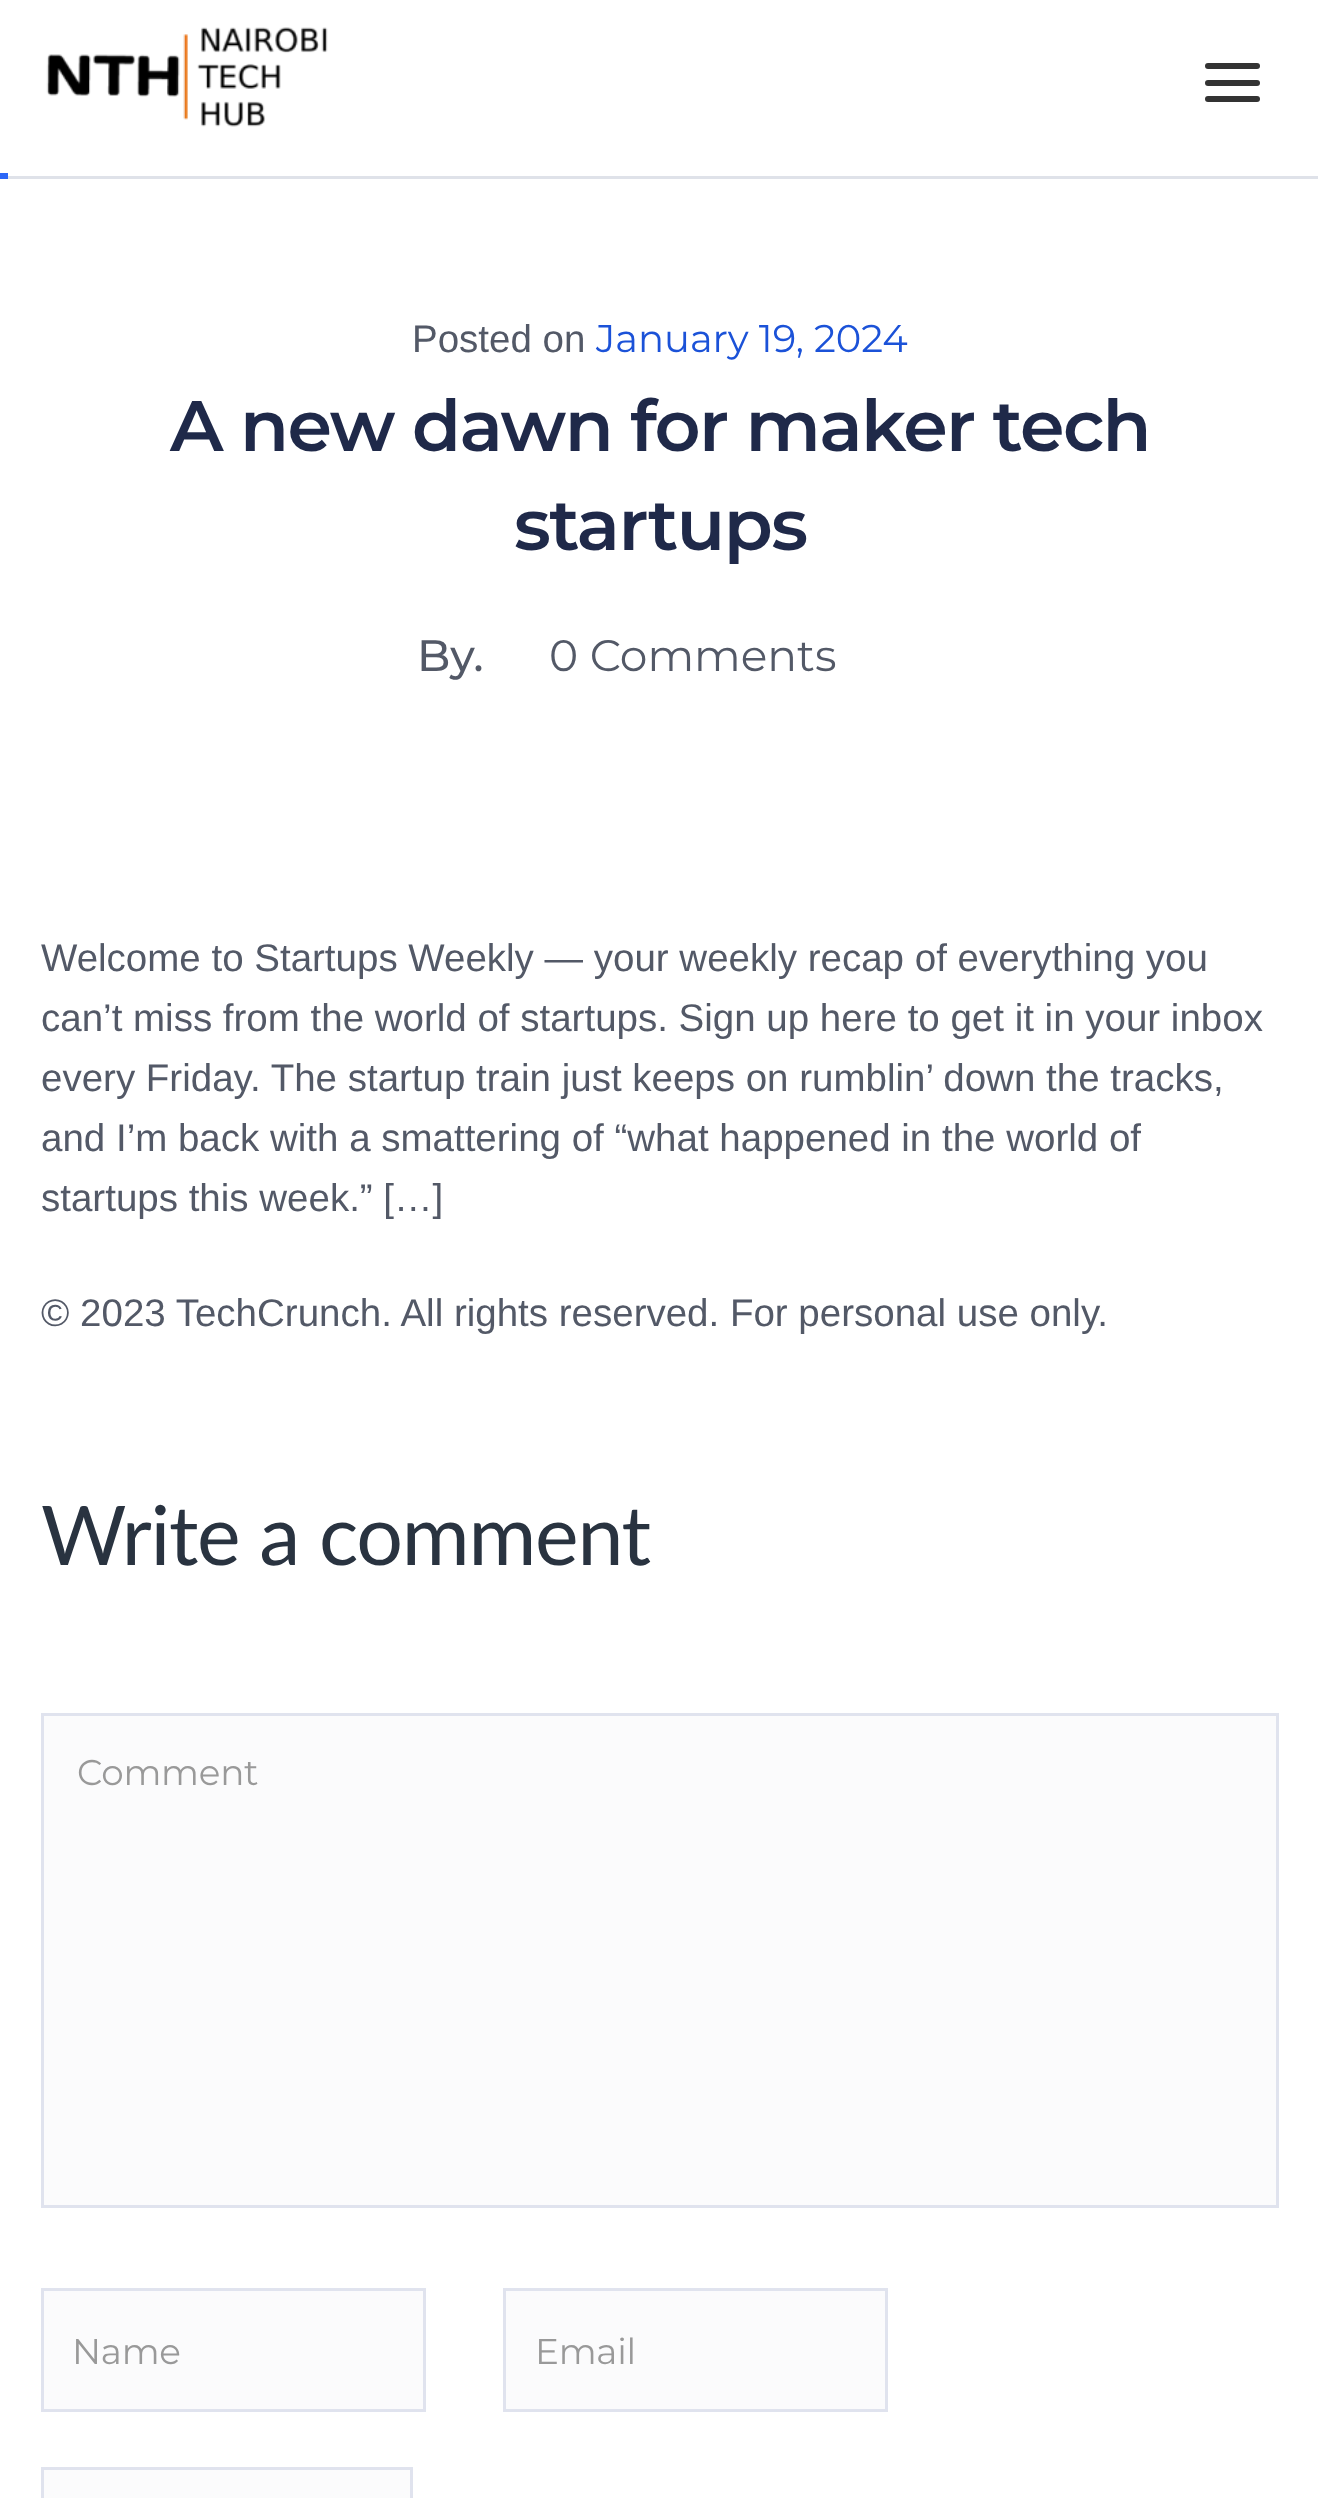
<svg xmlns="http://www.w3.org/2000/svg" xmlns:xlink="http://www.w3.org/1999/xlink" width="1318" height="2498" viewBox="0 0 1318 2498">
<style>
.cls-1{font:38.5px Liberation Sans;fill:#535967}
.cls-2{font:38.5px Montserrat;fill:#1b52d8}
.cls-3{font:600 71.5px Montserrat;letter-spacing:-1.6px;fill:#1f2949}
.cls-4{font:500 44px Montserrat;fill:#535967}
.cls-5{font:44px Montserrat;fill:#535967}
.cls-6{font:82.5px Lato;letter-spacing:-1.25px;fill:#293340}
.cls-7{font:35.75px Montserrat;letter-spacing:-0.25px;fill:#999999}
</style>
<rect width="100%" height="100%" fill="#ffffff"/>
<rect fill="#dfe2e9" x="0" y="176" width="1318" height="3"/>
<image xlink:href="image0.png" x="46" y="27" width="282" height="100"/>
<rect fill="#333333" x="1205" y="80" width="55" height="6" rx="3"/>
<rect fill="#333333" x="1205" y="63" width="55" height="6" rx="3"/>
<rect fill="#333333" x="1205" y="96" width="55" height="6" rx="3"/>
<rect fill="#2c67f7" x="0" y="173" width="8" height="6"/>
<rect fill="#fbfbfc" stroke="#e0e3ee" stroke-width="3" x="42.5" y="1714.5" width="1235" height="492"/>
<rect fill="#fbfbfc" stroke="#e0e3ee" stroke-width="3" x="42.5" y="2289.5" width="382" height="121"/>
<rect fill="#fbfbfc" stroke="#e0e3ee" stroke-width="3" x="504.5" y="2289.5" width="382" height="121"/>
<rect fill="#fbfbfc" stroke="#e0e3ee" stroke-width="3" x="42.5" y="2468.5" width="369" height="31"/>
<text class="cls-1" x="412" y="352">Posted on</text>
<text class="cls-2" x="596" y="352">January 19, 2024</text>
<text class="cls-3" x="170" y="451">A new dawn for maker tech</text>
<text class="cls-3" x="514" y="550">startups</text>
<text class="cls-4" x="417" y="671">By.</text>
<text class="cls-5" x="549" y="671">0 Comments</text>
<text class="cls-1"><tspan x="41" y="971">Welcome to Startups Weekly — your weekly recap of everything you</tspan><tspan x="41" y="1031">can’t miss from the world of startups. Sign up here to get it in your inbox</tspan><tspan x="41" y="1091">every Friday. The startup train just keeps on rumblin’ down the tracks,</tspan><tspan x="41" y="1151">and I’m back with a smattering of “what happened in the world of</tspan><tspan x="41" y="1211">startups this week.” […]</tspan></text>
<text class="cls-1" x="41" y="1326">© 2023 TechCrunch. All rights reserved. For personal use only.</text>
<text class="cls-6" x="41" y="1565">Write a comment</text>
<text class="cls-7" x="77" y="1785">Comment</text>
<text class="cls-7" x="72" y="2364">Name</text>
<text class="cls-7" x="535" y="2364">Email</text>
</svg>
